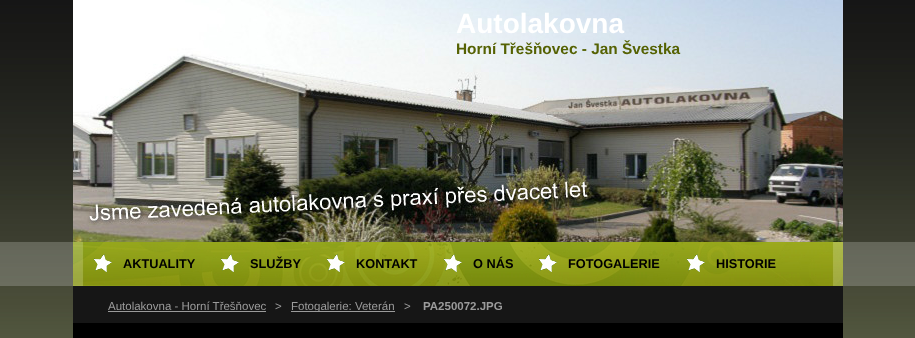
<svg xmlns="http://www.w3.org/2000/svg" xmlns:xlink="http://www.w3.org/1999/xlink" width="915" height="338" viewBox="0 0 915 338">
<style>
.cls-1{font:bold 28px Liberation Sans;fill:#ffffff}
.cls-2{font:bold 15.4px Liberation Sans;fill:#556203}
.cls-3{font:bold 12.75px Liberation Sans;fill:#000000}
.cls-4{font:11.5px Liberation Sans;fill:#9b9b9b}
.cls-5{font:bold 11.5px Liberation Sans;fill:#9b9b9b}
</style>
<defs>
<clipPath id="clip1"><rect x="108" y="300" width="450" height="12"/></clipPath>
</defs>
<rect width="100%" height="100%" fill="#ffffff"/>
<image xlink:href="image0.png" x="0" y="0" width="915" height="338"/>
<rect fill="#000000" x="73" y="323" width="770" height="15"/>
<image xlink:href="image1.png" x="73" y="0" width="770" height="242"/>
<image xlink:href="image2.png" x="73" y="242" width="770" height="44"/>
<image xlink:href="image3.png" x="94" y="254" width="18" height="18"/>
<image xlink:href="image4.png" x="221" y="254" width="18" height="18"/>
<image xlink:href="image5.png" x="327" y="254" width="18" height="18"/>
<image xlink:href="image6.png" x="444" y="254" width="18" height="18"/>
<image xlink:href="image7.png" x="539" y="254" width="18" height="18"/>
<image xlink:href="image8.png" x="687" y="254" width="18" height="18"/>
<rect fill="#161616" x="73" y="286" width="770" height="37"/>
<rect fill="#9b9b9b" x="108" y="311" width="158" height="1"/>
<rect fill="#9b9b9b" x="291" y="311" width="104" height="1"/>
<text class="cls-1" x="456" y="33">Autolakovna</text>
<text class="cls-2" x="456" y="54">Horní Třešňovec - Jan Švestka</text>
<text class="cls-3" x="123" y="268">AKTUALITY</text>
<text class="cls-3" x="250" y="268">SLUŽBY</text>
<text class="cls-3" x="356" y="268">KONTAKT</text>
<text class="cls-3" x="473" y="268">O NÁS</text>
<text class="cls-3" x="568" y="268">FOTOGALERIE</text>
<text class="cls-3" x="716" y="268">HISTORIE</text>
<text class="cls-4" x="108" y="310">Autolakovna - Horní Třešňovec</text>
<text class="cls-4" x="275" y="310">&gt;</text>
<g clip-path="url(#clip1)">
<text class="cls-4" x="291" y="310">Fotogalerie: Veterán</text>
</g>
<text class="cls-4" x="404" y="310">&gt;</text>
<text class="cls-5" x="423" y="310">PA250072.JPG</text>
</svg>
